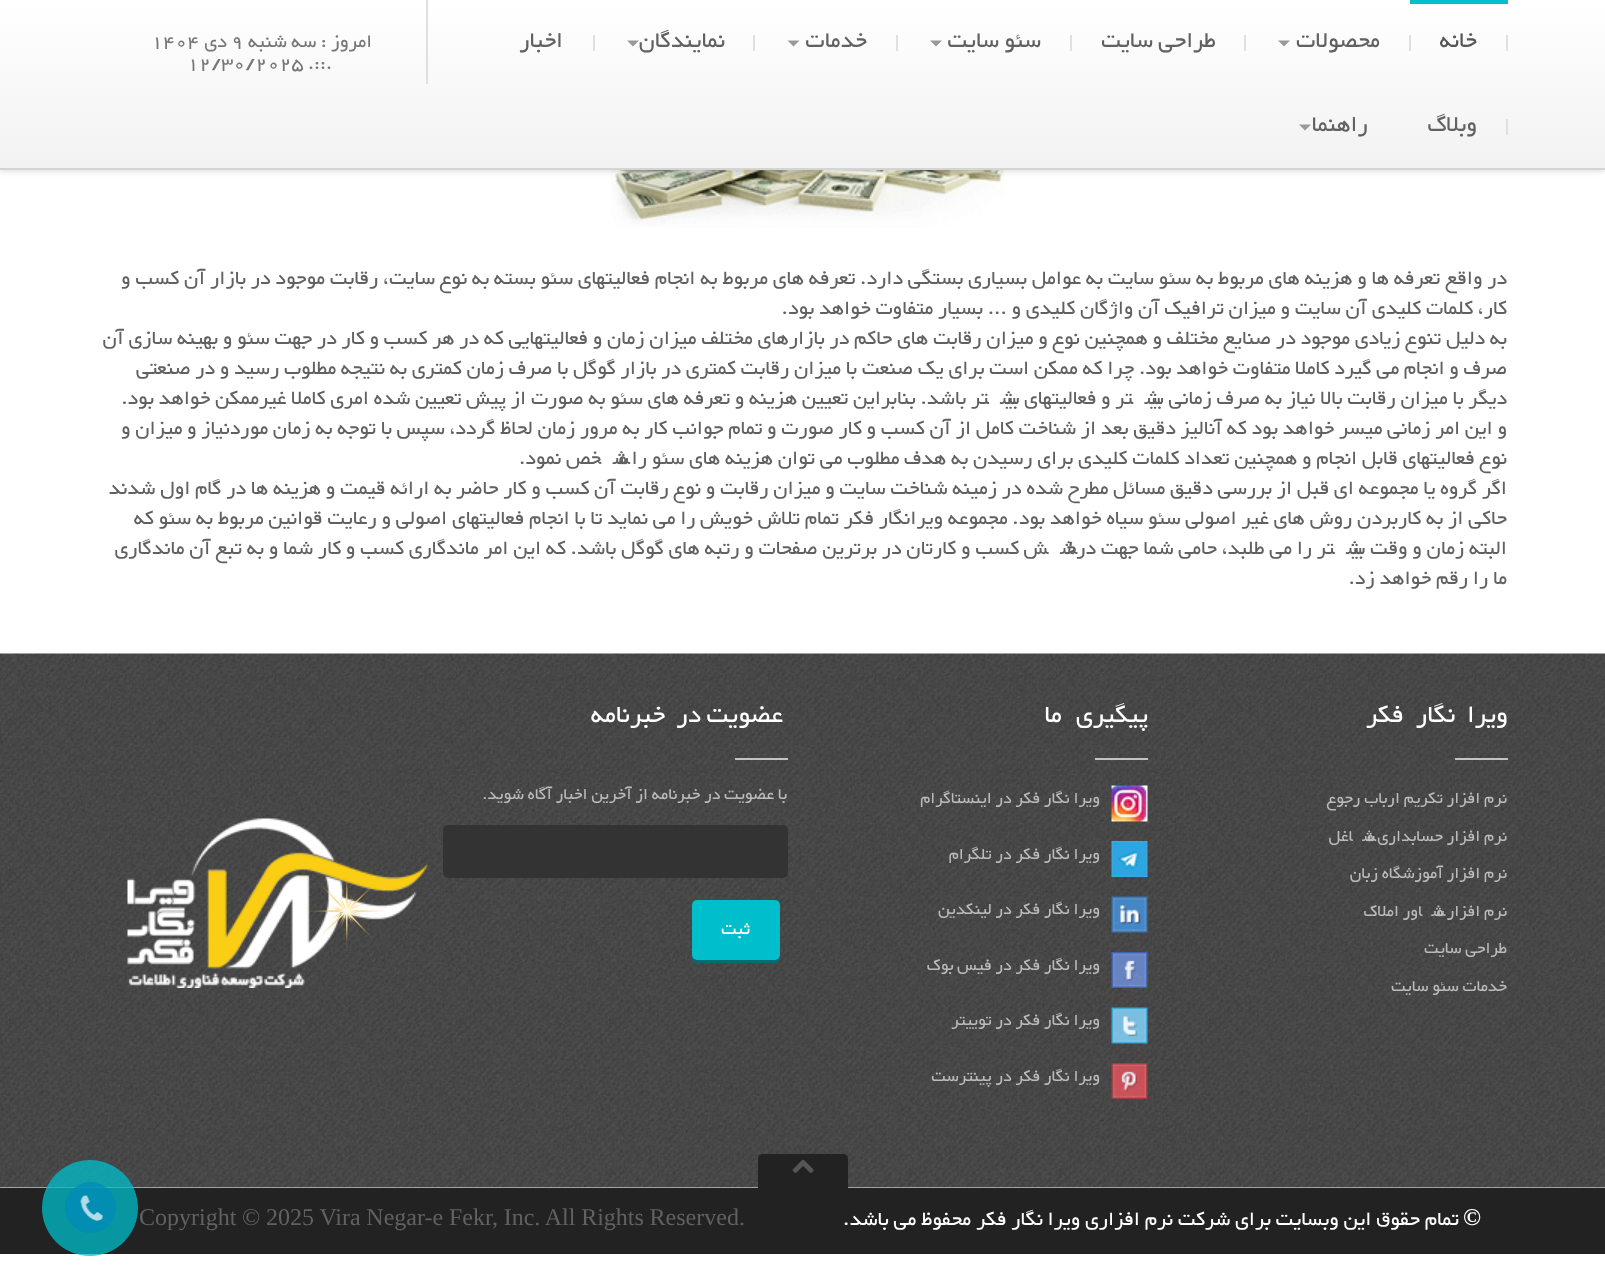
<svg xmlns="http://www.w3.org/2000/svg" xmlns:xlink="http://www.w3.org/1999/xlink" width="1605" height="1282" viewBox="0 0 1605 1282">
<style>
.cls-1{font:27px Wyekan;direction:rtl;fill:#555555}
.cls-2{font:27px Wyekan;direction:rtl;fill:#616161}
.cls-3{font:22.5px Wyekan;direction:rtl;fill:#777777}
.cls-4{font:22.5px Wyekan;fill:#777777}
.cls-5{font:24px Wyekan;direction:rtl;fill:#616161}
.cls-6{font:30px Wyekan;letter-spacing:-0.9px;direction:rtl;fill:#ffffff}
.cls-7{font:19.5px Wyekan;direction:rtl;fill:#bbbbbb}
.cls-8{font:21px Wyekan;direction:rtl;fill:#ffffff}
.cls-9{font:bold 24px Liberation Serif;direction:rtl;fill:#ffffff}
.cls-10{font:24px Wyekan;direction:rtl;fill:#ffffff}
.cls-11{font:24px Liberation Serif;fill:#616161}
</style>
<defs>
<linearGradient id="g1" gradientUnits="userSpaceOnUse" x1="803" y1="0" x2="803" y2="168"><stop offset="0" stop-color="#ffffff"/><stop offset="1" stop-color="#f2f2f2"/></linearGradient>
</defs>
<rect width="100%" height="100%" fill="#ffffff"/>
<image xlink:href="image0.png" x="611" y="170" width="394" height="58"/>
<rect fill="#000000" fill-opacity="0.15" filter="blur(3px)" x="0" y="2" width="1605" height="169"/>
<rect fill="url(#g1)" x="0" y="0" width="1605" height="168"/>
<rect fill="#d4d4d4" x="0" y="168" width="1605" height="2"/>
<rect fill="#00becc" x="1410" y="0" width="98" height="4"/>
<rect fill="#e0e0e0" x="1506" y="35" width="2" height="16"/>
<rect fill="#e0e0e0" x="1409" y="35" width="2" height="16"/>
<path fill="#999999" d="M1278 40.5H1290L1284 46.5Z"/>
<rect fill="#e0e0e0" x="1244" y="35" width="2" height="16"/>
<rect fill="#e0e0e0" x="1070" y="35" width="2" height="16"/>
<path fill="#999999" d="M930 40.5H942L936 46.5Z"/>
<rect fill="#e0e0e0" x="896" y="35" width="2" height="16"/>
<path fill="#999999" d="M787.5 40.5H799.5L793.5 46.5Z"/>
<rect fill="#e0e0e0" x="753" y="35" width="2" height="16"/>
<path fill="#999999" d="M627 40.5H639L633 46.5Z"/>
<rect fill="#e0e0e0" x="593" y="35" width="2" height="16"/>
<rect fill="#e0e0e0" x="1506" y="119" width="2" height="16"/>
<path fill="#999999" d="M1299 124.5H1311L1305 130.5Z"/>
<rect fill="#e0e0e0" x="426" y="0" width="2" height="84"/>
<image xlink:href="image1.png" x="0" y="653" width="1605" height="535"/>
<rect fill="#c3c2c4" x="1455" y="758" width="53" height="2"/>
<rect fill="#c3c2c4" x="1095" y="758" width="53" height="2"/>
<image xlink:href="image2.png" x="1111" y="785" width="37" height="37"/>
<image xlink:href="image3.png" x="1111" y="841" width="37" height="36"/>
<image xlink:href="image4.png" x="1111" y="896" width="37" height="37"/>
<image xlink:href="image5.png" x="1111" y="952" width="37" height="36"/>
<image xlink:href="image6.png" x="1111" y="1007" width="37" height="37"/>
<image xlink:href="image7.png" x="1111" y="1063" width="37" height="36"/>
<rect fill="#c3c2c4" x="735" y="758" width="53" height="2"/>
<rect fill="#333333" x="443" y="825" width="345" height="53" rx="5"/>
<path fill="#006d75" d="M692 958C692 966 706 963 710 963H762C772 963 780 966 780 956C780 958 778 960 776 960H696C694 960 693 959 692 958Z"/>
<rect fill="#00becc" x="692" y="900" width="88" height="60" rx="5"/>
<image xlink:href="image8.png" x="127" y="818" width="301" height="170"/>
<image xlink:href="image9.png" x="305" y="877" width="81" height="76"/>
<rect fill="#222222" x="0" y="1188" width="1605" height="66"/>
<path fill="#222222" d="M763 1154H843C846 1154 848 1156 848 1159V1188H758V1159C758 1156 760 1154 763 1154Z"/>
<image xlink:href="image10.png" x="792" y="1159" width="22" height="14"/>
<circle fill="#00becc" fill-opacity="0.75" cx="90" cy="1208" r="48"/>
<circle fill="#0089b9" fill-opacity="0.7" cx="90.5" cy="1207.5" r="25.5"/>
<image xlink:href="image11.png" x="80" y="1195" width="23" height="26"/>
<text class="cls-1" x="1477" y="47">خانه</text>
<text class="cls-2" x="1380" y="47">محصولات</text>
<text class="cls-2" x="1216" y="47">طراحی سایت</text>
<text class="cls-2" x="1041" y="47">سئو سایت</text>
<text class="cls-2" x="867" y="47">خدمات</text>
<text class="cls-2" x="725" y="47">نمایندگان</text>
<text class="cls-2" x="563" y="47">اخبار</text>
<text class="cls-2" x="1477" y="131">وبلاگ</text>
<text class="cls-2" x="1368" y="131">راهنما</text>
<text class="cls-3" x="372" y="47">امروز : سه شنبه</text>
<text class="cls-4" x="231" y="47">9</text>
<text class="cls-3" x="227" y="47">دی</text>
<text class="cls-4" x="151" y="47">1404</text>
<text class="cls-4" x="187" y="69">12/30/2025 .::.</text>
<text class="cls-5"><tspan x="1507" y="284">در واقع تعرفه ها و هزینه های مربوط به سئو سایت به عوامل بسیاری بستگی دارد. تعرفه های مربوط به انجام فعالیتهای سئو بسته به نوع سایت، رقابت موجود در بازار آن کسب و</tspan><tspan x="1507" y="314">کار، کلمات کلیدی آن سایت و میزان ترافیک آن واژگان کلیدی</tspan></text>
<text class="cls-5" x="1021" y="314">و ... بسیار متفاوت خواهد بود.</text>
<text class="cls-5" x="1507" y="344">به دلیل تنوع زیادی موجود در صنایع مختلف و همچنین نوع و میزان رقابت های حاکم در بازارهای مختلف میزان زمان و فعالیتهایی که در هر کسب</text>
<text class="cls-5" x="379" y="344">و کار در جهت سئو و بهینه سازی آن</text>
<text class="cls-5"><tspan x="1507" y="374">صرف و انجام می گیرد کاملا متفاوت خواهد بود. چرا که ممکن است برای یک صنعت با میزان رقابت کمتری در بازار گوگل با صرف زمان کمتری به نتیجه مطلوب رسید و در صنعتی</tspan><tspan x="1507" y="404">دیگر با میزان رقابت بالا نیاز به صرف زمانی بیشتر و فعالیتهای بیشتر باشد. بنابراین تعیین هزینه و تعرفه های سئو به صورت از پیش تعیین شده امری کاملا غیرممکن خواهد بود.</tspan><tspan x="1507" y="434">و این امر زمانی میسر خواهد بود که آنالیز دقیق بعد از شناخت کامل از آن کسب و کار صورت و تمام جوانب کار به مرور زمان لحاظ گردد، سپس با توجه به زمان موردنیاز و میزان و</tspan><tspan x="1507" y="464">نوع فعالیتهای قابل انجام و همچنین تعداد کلمات کلیدی برای رسیدن به هدف مطلوب می توان هزینه های سئو را مشخص نمود.</tspan><tspan x="1507" y="494">اگر گروه یا مجموعه ای قبل از بررسی دقیق مسائل مطرح شده در زمینه شناخت سایت و میزان رقابت و نوع رقابت آن کسب و کار حاضر به ارائه قیمت و هزینه ها در گام اول شدند</tspan><tspan x="1507" y="524">حاکی از به کاربردن روش های غیر اصولی سئو سیاه خواهد بود. مجموعه ویرانگار فکر تمام تلاش خویش را می نماید تا با انجام فعالیتهای اصولی و رعایت قوانین مربوط به سئو که</tspan><tspan x="1507" y="554">البته زمان و وقت بیشتر را می طلبد، حامی شما جهت درخشش کسب و کارتان در برترین صفحات و رتبه های گوگل باشد. که این امر ماندگاری کسب و کار شما و به تبع آن ماندگاری</tspan><tspan x="1507" y="584">ما را رقم خواهد زد.</tspan></text>
<text class="cls-6" x="1508" y="722" word-spacing="6">ویرا نگار فکر</text>
<text class="cls-7"><tspan x="1507" y="803">نرم افزار تکریم ارباب رجوع</tspan><tspan x="1507" y="841">نرم افزار حسابداری مشاغل</tspan><tspan x="1507" y="878">نرم افزار آموزشگاه زبان</tspan><tspan x="1507" y="916">نرم افزار مشاور املاک</tspan><tspan x="1507" y="953">طراحی سایت</tspan><tspan x="1507" y="991">خدمات سئو سایت</tspan></text>
<text class="cls-6" x="1148" y="722" word-spacing="8">پیگیری ما</text>
<text class="cls-7" x="1100" y="803">ویرا نگار فکر در اینستاگرام</text>
<text class="cls-7" x="1100" y="859">ویرا نگار فکر در تلگرام</text>
<text class="cls-7" x="1100" y="914">ویرا نگار فکر در لینکدین</text>
<text class="cls-7" x="1100" y="970">ویرا نگار فکر در فیس بوک</text>
<text class="cls-7" x="1100" y="1025">ویرا نگار فکر در توییتر</text>
<text class="cls-7" x="1100" y="1081">ویرا نگار فکر در پینترست</text>
<text class="cls-6" x="783" y="722">عضویت</text>
<text class="cls-6" x="701" y="722" word-spacing="5">در خبرنامه</text>
<text class="cls-7" x="787" y="799">با عضویت در خبرنامه از آخرین اخبار آگاه شوید.</text>
<text class="cls-8" x="750" y="934">ثبت</text>
<text class="cls-9" x="1481" y="1225">©</text>
<text class="cls-10" x="1459" y="1225">تمام حقوق این وبسایت برای شرکت نرم افزاری ویرا نگار فکر</text>
<text class="cls-10" x="971" y="1225">محفوظ می باشد.</text>
<text class="cls-11" x="739" y="1225">.</text>
<text class="cls-11" x="139" y="1225" word-spacing="-0.25">Copyright © 2025 Vira Negar-e Fekr, Inc. All Rights Reserved</text>
</svg>
